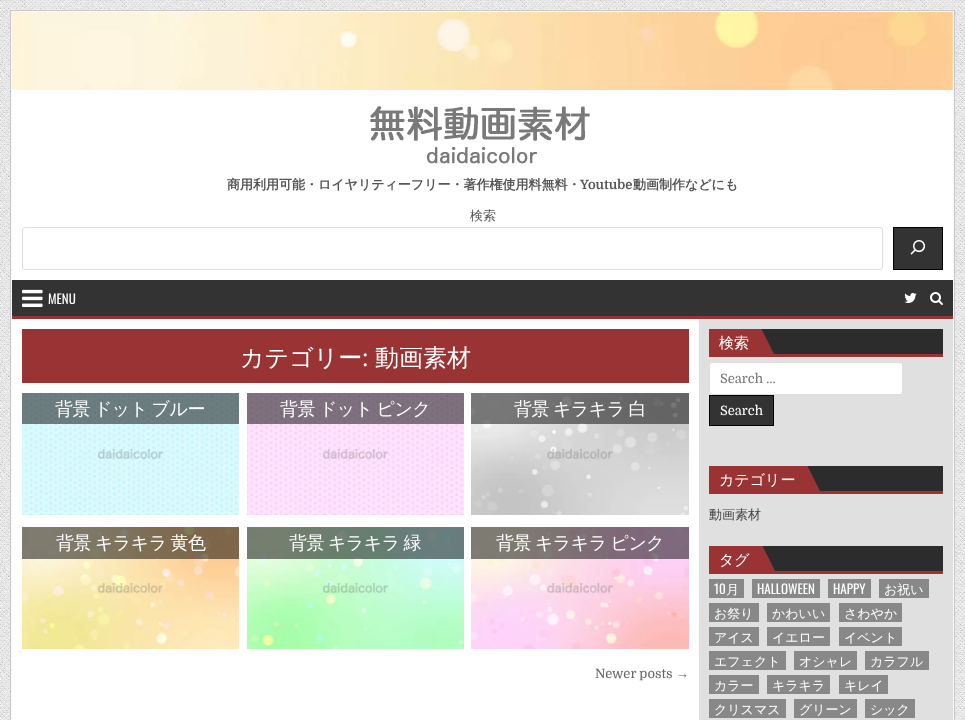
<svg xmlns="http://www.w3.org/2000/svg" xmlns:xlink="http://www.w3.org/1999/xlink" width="965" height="720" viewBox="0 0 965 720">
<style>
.cls-1{font:bold 13px WenQuanYi Zen Hei;fill:#555555}
.cls-2{font:bold 13px Domine;fill:#555555}
.cls-3{font:500 13px WenQuanYi Zen Hei;fill:#555555}
.cls-4{font:13px Oswald;fill:#ffffff}
.cls-5{font:500 24px WenQuanYi Zen Hei;fill:#ffffff}
.cls-6{font:24px Playfair Display;fill:#ffffff}
.cls-7{font:500 18px WenQuanYi Zen Hei;letter-spacing:-0.5px;fill:#ffffff}
.cls-8{font:13px Domine;fill:#666666}
.cls-9{font:13px Liberation Sans;fill:#666666}
.cls-10{font:500 15px WenQuanYi Zen Hei;fill:#ffffff}
.cls-11{font:13px Domine;fill:#757575}
.cls-12{font:13px Domine;fill:#ffffff}
.cls-13{font:500 13px WenQuanYi Zen Hei;fill:#444444}
.cls-14{font:500 13px WenQuanYi Zen Hei;fill:#ffffff}
</style>
<defs>
<clipPath id="clip1"><rect x="709" y="329" width="234" height="25"/></clipPath>
<clipPath id="clip2"><rect x="709" y="466" width="234" height="25"/></clipPath>
<clipPath id="clip3"><rect x="709" y="546" width="234" height="25"/></clipPath>
</defs>
<rect width="100%" height="100%" fill="#ffffff"/>
<image xlink:href="image0.png" x="0" y="0" width="965" height="720"/>
<rect fill="none" stroke="#c8c8c8" x="10.5" y="10.5" width="944" height="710"/>
<rect fill="none" stroke="#f9f9f9" x="11.5" y="11.5" width="942" height="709"/>
<rect fill="#ffffff" x="12" y="12" width="941" height="268"/>
<image xlink:href="image1.png" x="12" y="12" width="941" height="78"/>
<image xlink:href="image2.png" x="370" y="106" width="220" height="58"/>
<rect fill="none" stroke="#dddddd" x="22.5" y="227.5" width="860" height="42" rx="2.5"/>
<rect fill="#333333" stroke="#000000" x="893.5" y="227.5" width="49" height="42"/>
<image xlink:href="image3.png" x="910" y="240" width="16" height="15"/>
<rect fill="#333333" x="12" y="280" width="941" height="36"/>
<rect fill="#9a3334" x="12" y="316" width="941" height="3"/>
<image xlink:href="image4.png" x="22" y="289" width="21" height="18"/>
<image xlink:href="image5.png" x="904" y="293" width="13" height="10"/>
<image xlink:href="image6.png" x="930" y="292" width="13" height="13"/>
<rect fill="#ffffff" x="12" y="319" width="687" height="401"/>
<rect fill="#9a3334" x="22" y="329" width="667" height="54"/>
<image xlink:href="image7.png" x="22" y="393" width="217" height="122"/>
<rect fill="#000000" fill-opacity="0.5" x="22" y="393" width="217" height="31"/>
<image xlink:href="image8.png" x="247" y="393" width="217" height="122"/>
<rect fill="#000000" fill-opacity="0.5" x="247" y="393" width="217" height="31"/>
<image xlink:href="image9.png" x="471" y="393" width="218" height="122"/>
<rect fill="#000000" fill-opacity="0.5" x="471" y="393" width="218" height="31"/>
<image xlink:href="image10.png" x="22" y="527" width="217" height="122"/>
<rect fill="#000000" fill-opacity="0.5" x="22" y="527" width="217" height="32"/>
<image xlink:href="image11.png" x="247" y="527" width="217" height="122"/>
<rect fill="#000000" fill-opacity="0.5" x="247" y="527" width="217" height="32"/>
<image xlink:href="image12.png" x="471" y="527" width="218" height="122"/>
<rect fill="#000000" fill-opacity="0.5" x="471" y="527" width="218" height="32"/>
<rect fill="#e0e0e0" x="699" y="319" width="254" height="401"/>
<rect fill="#2c2c2c" x="761" y="329" width="182" height="25"/>
<rect fill="#9a3334" x="709" y="354" width="234" height="3"/>
<rect fill="#9a3334" x="709" y="329" width="50" height="25"/>
<g clip-path="url(#clip1)">
<path fill="#9a3334" d="M759 354V324L774 354Z"/>
</g>
<rect fill="#ffffff" stroke="#dddddd" x="709.5" y="362.5" width="193" height="32" rx="2.5"/>
<rect fill="#333333" stroke="#000000" x="709.5" y="395.5" width="64" height="30"/>
<rect fill="#2c2c2c" x="807" y="466" width="136" height="25"/>
<rect fill="#9a3334" x="709" y="491" width="234" height="3"/>
<rect fill="#9a3334" x="709" y="466" width="96" height="25"/>
<g clip-path="url(#clip2)">
<path fill="#9a3334" d="M805 491V461L820 491Z"/>
</g>
<rect fill="#2c2c2c" x="762" y="546" width="181" height="25"/>
<rect fill="#9a3334" x="709" y="571" width="234" height="3"/>
<rect fill="#9a3334" x="709" y="546" width="51" height="25"/>
<g clip-path="url(#clip3)">
<path fill="#9a3334" d="M760 571V541L775 571Z"/>
</g>
<rect fill="#888888" x="709" y="579" width="35" height="19"/>
<rect fill="#888888" x="752" y="579" width="68" height="19"/>
<rect fill="#888888" x="828" y="579" width="43" height="19"/>
<rect fill="#888888" x="879" y="579" width="50" height="19"/>
<rect fill="#888888" x="709" y="603" width="50" height="19"/>
<rect fill="#888888" x="767" y="603" width="63" height="19"/>
<rect fill="#888888" x="839" y="603" width="63" height="19"/>
<rect fill="#888888" x="709" y="627" width="50" height="19"/>
<rect fill="#888888" x="767" y="627" width="63" height="19"/>
<rect fill="#888888" x="839" y="627" width="63" height="19"/>
<rect fill="#888888" x="709" y="651" width="77" height="19"/>
<rect fill="#888888" x="794" y="651" width="63" height="19"/>
<rect fill="#888888" x="865" y="651" width="64" height="19"/>
<rect fill="#888888" x="709" y="675" width="50" height="19"/>
<rect fill="#888888" x="767" y="675" width="63" height="19"/>
<rect fill="#888888" x="839" y="675" width="49" height="19"/>
<rect fill="#888888" x="709" y="699" width="77" height="19"/>
<rect fill="#888888" x="794" y="699" width="63" height="19"/>
<rect fill="#888888" x="865" y="699" width="50" height="19"/>
<text class="cls-1" x="227" y="189">商用利用可能・ロイヤリティーフリー・著作権使用料無料・</text>
<text class="cls-2" x="580" y="189">Youtube</text>
<text class="cls-1" x="633" y="189">動画制作などにも</text>
<text class="cls-3" x="470" y="220">検索</text>
<text class="cls-4" x="48" y="304">MENU</text>
<text class="cls-5" x="240" y="366">カテゴリー</text>
<text class="cls-6" x="362" y="366">:</text>
<text class="cls-5" x="375" y="366">動画素材</text>
<text class="cls-7" x="55" y="415" word-spacing="-1">背景 ドット ブルー</text>
<text class="cls-7" x="280" y="415" word-spacing="-1">背景 ドット ピンク</text>
<text class="cls-7" x="514" y="415" word-spacing="-1">背景 キラキラ 白</text>
<text class="cls-7" x="56" y="549" word-spacing="-1">背景 キラキラ 黄色</text>
<text class="cls-7" x="289" y="549" word-spacing="-1">背景 キラキラ 緑</text>
<text class="cls-7" x="496" y="549" word-spacing="-1">背景 キラキラ ピンク</text>
<text class="cls-8" x="595" y="678">Newer posts</text>
<text class="cls-9" x="676" y="678">→</text>
<text class="cls-10" x="719" y="348">検索</text>
<text class="cls-11" x="720" y="383">Search …</text>
<text class="cls-12" x="720" y="415">Search</text>
<text class="cls-10" x="719" y="485">カテゴリー</text>
<text class="cls-13" x="709" y="519">動画素材</text>
<text class="cls-10" x="719" y="565">タグ</text>
<text class="cls-4" x="714" y="594">10</text>
<text class="cls-14" x="726" y="594">月</text>
<text class="cls-4" x="757" y="594">HALLOWEEN</text>
<text class="cls-4" x="833" y="594">HAPPY</text>
<text class="cls-14" x="884" y="594">お祝い</text>
<text class="cls-14" x="714" y="618">お祭り</text>
<text class="cls-14" x="772" y="618">かわいい</text>
<text class="cls-14" x="844" y="618">さわやか</text>
<text class="cls-14" x="714" y="642">アイス</text>
<text class="cls-14" x="772" y="642">イエロー</text>
<text class="cls-14" x="844" y="642">イベント</text>
<text class="cls-14" x="714" y="666">エフェクト</text>
<text class="cls-14" x="799" y="666">オシャレ</text>
<text class="cls-14" x="870" y="666">カラフル</text>
<text class="cls-14" x="714" y="690">カラー</text>
<text class="cls-14" x="772" y="690">キラキラ</text>
<text class="cls-14" x="844" y="690">キレイ</text>
<text class="cls-14" x="714" y="714">クリスマス</text>
<text class="cls-14" x="799" y="714">グリーン</text>
<text class="cls-14" x="870" y="714">シック</text>
</svg>
